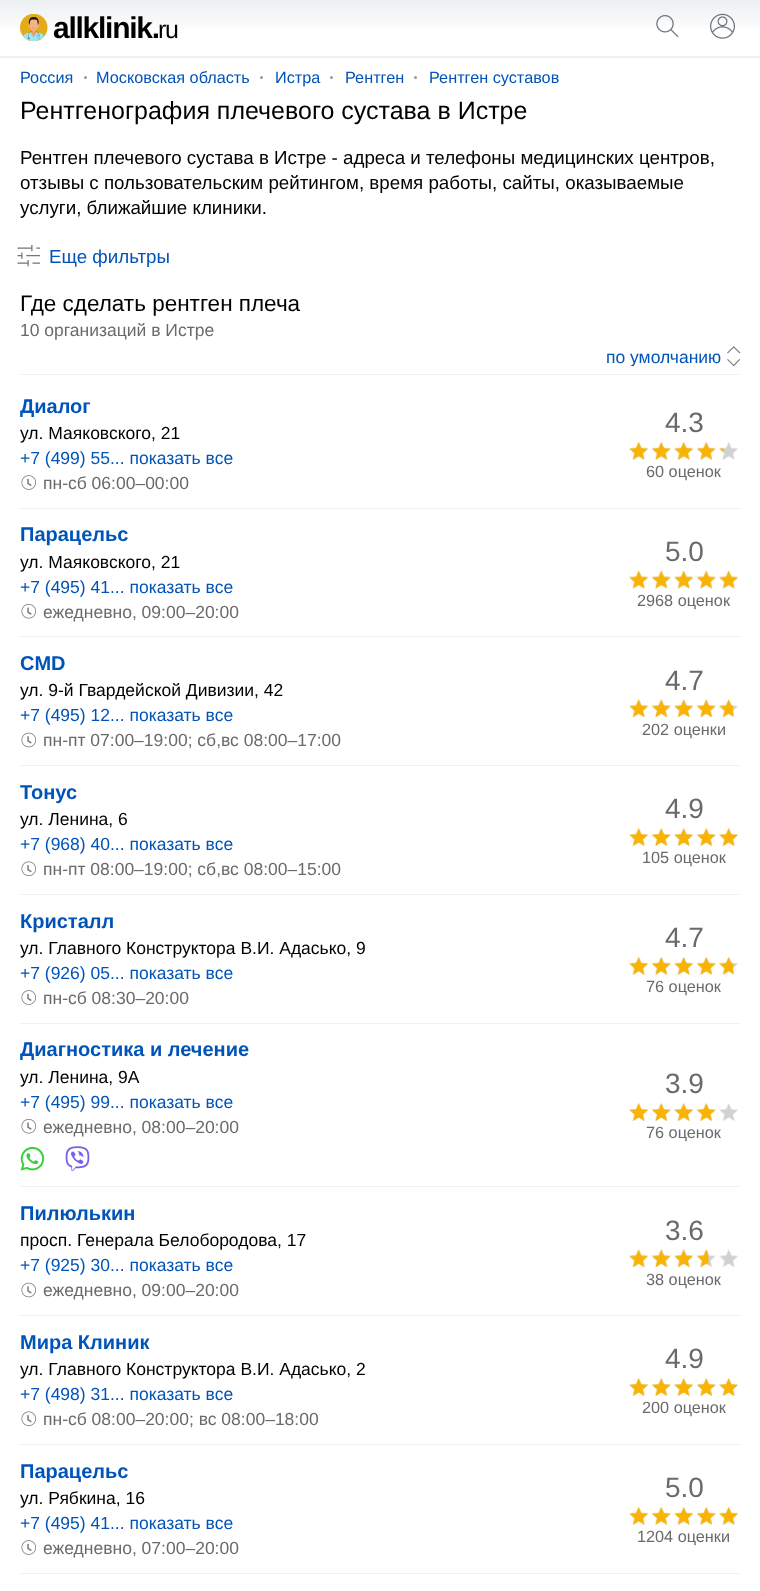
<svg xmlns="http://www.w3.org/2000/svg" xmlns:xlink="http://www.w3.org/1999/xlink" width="760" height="1591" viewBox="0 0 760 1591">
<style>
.cls-1{font:bold 30px Liberation Sans;letter-spacing:-1.25px;fill:#000000}
.cls-2{font:25px Liberation Sans;letter-spacing:-1.25px;fill:#000000}
.cls-3{font:16.25px Liberation Sans;fill:#0054b9}
.cls-4{font:25px Liberation Sans;fill:#000000}
.cls-5{font:18.75px Liberation Sans;fill:#000000}
.cls-6{font:18.75px Liberation Sans;fill:#0054b9}
.cls-7{font:22.5px Liberation Sans;fill:#000000}
.cls-8{font:17.5px Liberation Sans;fill:#6a6a6a}
.cls-9{font:17.5px Liberation Sans;fill:#0054b9}
.cls-10{font:bold 20px Liberation Sans;fill:#0054b9}
.cls-11{font:17.5px Liberation Sans;fill:#000000}
.cls-12{font:28px Liberation Sans;fill:#6a6a6a}
.cls-13{font:16.25px Liberation Sans;fill:#6a6a6a}
</style>
<defs>
<linearGradient id="g1" gradientUnits="userSpaceOnUse" x1="380" y1="0" x2="380" y2="56"><stop offset="0" stop-color="#eceff1"/><stop offset="0.6" stop-color="#ffffff"/></linearGradient>
<linearGradient id="g2" gradientUnits="userSpaceOnUse" x1="380" y1="56" x2="380" y2="113"><stop offset="0" stop-color="#eceff1"/><stop offset="0.6" stop-color="#ffffff"/></linearGradient>
<clipPath id="clip1"><rect x="20" y="68" width="740" height="18"/></clipPath>
<clipPath id="clip2"><rect x="468" y="346" width="253" height="20"/></clipPath>
</defs>
<rect width="100%" height="100%" fill="#ffffff"/>
<rect fill="url(#g1)" x="0" y="0" width="760" height="29"/>
<rect fill="url(#g2)" x="0" y="57" width="760" height="1"/>
<rect fill="#f1f1f1" x="0" y="56" width="760" height="1"/>
<image xlink:href="image0.png" x="20" y="14" width="28" height="27"/>
<image xlink:href="image1.png" x="656" y="15" width="23" height="23"/>
<image xlink:href="image2.png" x="710" y="13" width="25" height="26"/>
<circle fill="#999999" cx="85.5" cy="77.5" r="1.5"/>
<circle fill="#999999" cx="261.5" cy="77.5" r="1.5"/>
<circle fill="#999999" cx="331.5" cy="77.5" r="1.5"/>
<circle fill="#999999" cx="415.5" cy="77.5" r="1.5"/>
<image xlink:href="image3.png" x="17" y="245" width="23" height="22"/>
<rect fill="#f1f1f1" x="20" y="374" width="720" height="1"/>
<image xlink:href="image4.png" x="727" y="346" width="14" height="21"/>
<image xlink:href="image5.png" x="21" y="475" width="15" height="15"/>
<image xlink:href="image6.png" x="629" y="442" width="109" height="18"/>
<image xlink:href="image7.png" x="629" y="442" width="95" height="18"/>
<rect fill="#f1f1f1" x="20" y="508" width="720" height="1"/>
<image xlink:href="image8.png" x="21" y="604" width="15" height="15"/>
<image xlink:href="image9.png" x="629" y="570" width="109" height="19"/>
<image xlink:href="image10.png" x="629" y="570" width="109" height="19"/>
<rect fill="#f1f1f1" x="20" y="636" width="720" height="1"/>
<image xlink:href="image11.png" x="21" y="732" width="15" height="16"/>
<image xlink:href="image12.png" x="629" y="699" width="109" height="18"/>
<image xlink:href="image13.png" x="629" y="699" width="105" height="19"/>
<rect fill="#f1f1f1" x="20" y="765" width="720" height="1"/>
<image xlink:href="image14.png" x="21" y="861" width="15" height="15"/>
<image xlink:href="image15.png" x="629" y="828" width="109" height="18"/>
<image xlink:href="image16.png" x="629" y="828" width="109" height="19"/>
<rect fill="#f1f1f1" x="20" y="894" width="720" height="1"/>
<image xlink:href="image5.png" x="21" y="990" width="15" height="15"/>
<image xlink:href="image17.png" x="629" y="957" width="109" height="18"/>
<image xlink:href="image18.png" x="629" y="957" width="105" height="18"/>
<rect fill="#f1f1f1" x="20" y="1023" width="720" height="1"/>
<image xlink:href="image8.png" x="21" y="1119" width="15" height="15"/>
<image xlink:href="image19.png" x="20" y="1146" width="25" height="25"/>
<image xlink:href="image20.png" x="65" y="1146" width="25" height="25"/>
<image xlink:href="image21.png" x="629" y="1103" width="109" height="18"/>
<image xlink:href="image22.png" x="629" y="1103" width="86" height="19"/>
<rect fill="#f1f1f1" x="20" y="1186" width="720" height="1"/>
<image xlink:href="image11.png" x="21" y="1282" width="15" height="16"/>
<image xlink:href="image23.png" x="629" y="1249" width="109" height="18"/>
<image xlink:href="image24.png" x="629" y="1249" width="80" height="19"/>
<rect fill="#f1f1f1" x="20" y="1315" width="720" height="1"/>
<image xlink:href="image14.png" x="21" y="1411" width="15" height="15"/>
<image xlink:href="image25.png" x="629" y="1378" width="109" height="18"/>
<image xlink:href="image26.png" x="629" y="1378" width="109" height="19"/>
<rect fill="#f1f1f1" x="20" y="1444" width="720" height="1"/>
<image xlink:href="image5.png" x="21" y="1540" width="15" height="15"/>
<image xlink:href="image27.png" x="629" y="1507" width="109" height="18"/>
<image xlink:href="image28.png" x="629" y="1507" width="109" height="18"/>
<rect fill="#f1f1f1" x="20" y="1573" width="720" height="1"/>
<text class="cls-1" x="53" y="38">allklinik.</text>
<text class="cls-2" x="158" y="38">ru</text>
<text class="cls-3" x="20" y="83">Россия</text>
<text class="cls-3" x="96" y="83">Московская область</text>
<text class="cls-3" x="275" y="83">Истра</text>
<text class="cls-3" x="345" y="83">Рентген</text>
<g clip-path="url(#clip1)">
<text class="cls-3" x="429" y="83">Рентген суставов</text>
</g>
<text class="cls-4" x="20" y="119">Рентгенография плечевого сустава в Истре</text>
<text class="cls-5"><tspan x="20" y="164">Рентген плечевого сустава в Истре - адреса и телефоны медицинских центров,</tspan><tspan x="20" y="189">отзывы с пользовательским рейтингом, время работы, сайты, оказываемые</tspan><tspan x="20" y="214">услуги, ближайшие клиники.</tspan></text>
<text class="cls-6" x="49" y="263">Еще фильтры</text>
<text class="cls-7" x="20" y="311">Где сделать рентген плеча</text>
<text class="cls-8" x="20" y="336">10 организаций в Истре</text>
<g clip-path="url(#clip2)">
<text class="cls-9" x="606" y="363">по умолчанию</text>
</g>
<text class="cls-10" x="20" y="413">Диалог</text>
<text class="cls-11" x="20" y="439">ул. Маяковского, 21</text>
<text class="cls-9" x="20" y="464">+7 (499) 55... показать все</text>
<text class="cls-8" x="43" y="489">пн-сб 06:00–00:00</text>
<text class="cls-12" x="665" y="432">4.3</text>
<text class="cls-13" x="646" y="477">60 оценок</text>
<text class="cls-10" x="20" y="541">Парацельс</text>
<text class="cls-11" x="20" y="568">ул. Маяковского, 21</text>
<text class="cls-9" x="20" y="593">+7 (495) 41... показать все</text>
<text class="cls-8" x="43" y="618">ежедневно, 09:00–20:00</text>
<text class="cls-12" x="665" y="561">5.0</text>
<text class="cls-13" x="637" y="606">2968 оценок</text>
<text class="cls-10" x="20" y="670">CMD</text>
<text class="cls-11" x="20" y="696">ул. 9-й Гвардейской Дивизии, 42</text>
<text class="cls-9" x="20" y="721">+7 (495) 12... показать все</text>
<text class="cls-8" x="43" y="746">пн-пт 07:00–19:00; сб,вс 08:00–17:00</text>
<text class="cls-12" x="665" y="690">4.7</text>
<text class="cls-13" x="642" y="735">202 оценки</text>
<text class="cls-10" x="20" y="799">Тонус</text>
<text class="cls-11" x="20" y="825">ул. Ленина, 6</text>
<text class="cls-9" x="20" y="850">+7 (968) 40... показать все</text>
<text class="cls-8" x="43" y="875">пн-пт 08:00–19:00; сб,вс 08:00–15:00</text>
<text class="cls-12" x="665" y="818">4.9</text>
<text class="cls-13" x="642" y="863">105 оценок</text>
<text class="cls-10" x="20" y="928">Кристалл</text>
<text class="cls-11" x="20" y="954">ул. Главного Конструктора В.И. Адасько, 9</text>
<text class="cls-9" x="20" y="979">+7 (926) 05... показать все</text>
<text class="cls-8" x="43" y="1004">пн-сб 08:30–20:00</text>
<text class="cls-12" x="665" y="947">4.7</text>
<text class="cls-13" x="646" y="992">76 оценок</text>
<text class="cls-10" x="20" y="1056">Диагностика и лечение</text>
<text class="cls-11" x="20" y="1083">ул. Ленина, 9А</text>
<text class="cls-9" x="20" y="1108">+7 (495) 99... показать все</text>
<text class="cls-8" x="43" y="1133">ежедневно, 08:00–20:00</text>
<text class="cls-12" x="665" y="1093">3.9</text>
<text class="cls-13" x="646" y="1138">76 оценок</text>
<text class="cls-10" x="20" y="1220">Пилюлькин</text>
<text class="cls-11" x="20" y="1246">просп. Генерала Белобородова, 17</text>
<text class="cls-9" x="20" y="1271">+7 (925) 30... показать все</text>
<text class="cls-8" x="43" y="1296">ежедневно, 09:00–20:00</text>
<text class="cls-12" x="665" y="1240">3.6</text>
<text class="cls-13" x="646" y="1285">38 оценок</text>
<text class="cls-10" x="20" y="1349">Мира Клиник</text>
<text class="cls-11" x="20" y="1375">ул. Главного Конструктора В.И. Адасько, 2</text>
<text class="cls-9" x="20" y="1400">+7 (498) 31... показать все</text>
<text class="cls-8" x="43" y="1425">пн-сб 08:00–20:00; вс 08:00–18:00</text>
<text class="cls-12" x="665" y="1368">4.9</text>
<text class="cls-13" x="642" y="1413">200 оценок</text>
<text class="cls-10" x="20" y="1478">Парацельс</text>
<text class="cls-11" x="20" y="1504">ул. Рябкина, 16</text>
<text class="cls-9" x="20" y="1529">+7 (495) 41... показать все</text>
<text class="cls-8" x="43" y="1554">ежедневно, 07:00–20:00</text>
<text class="cls-12" x="665" y="1497">5.0</text>
<text class="cls-13" x="637" y="1542">1204 оценки</text>
</svg>
